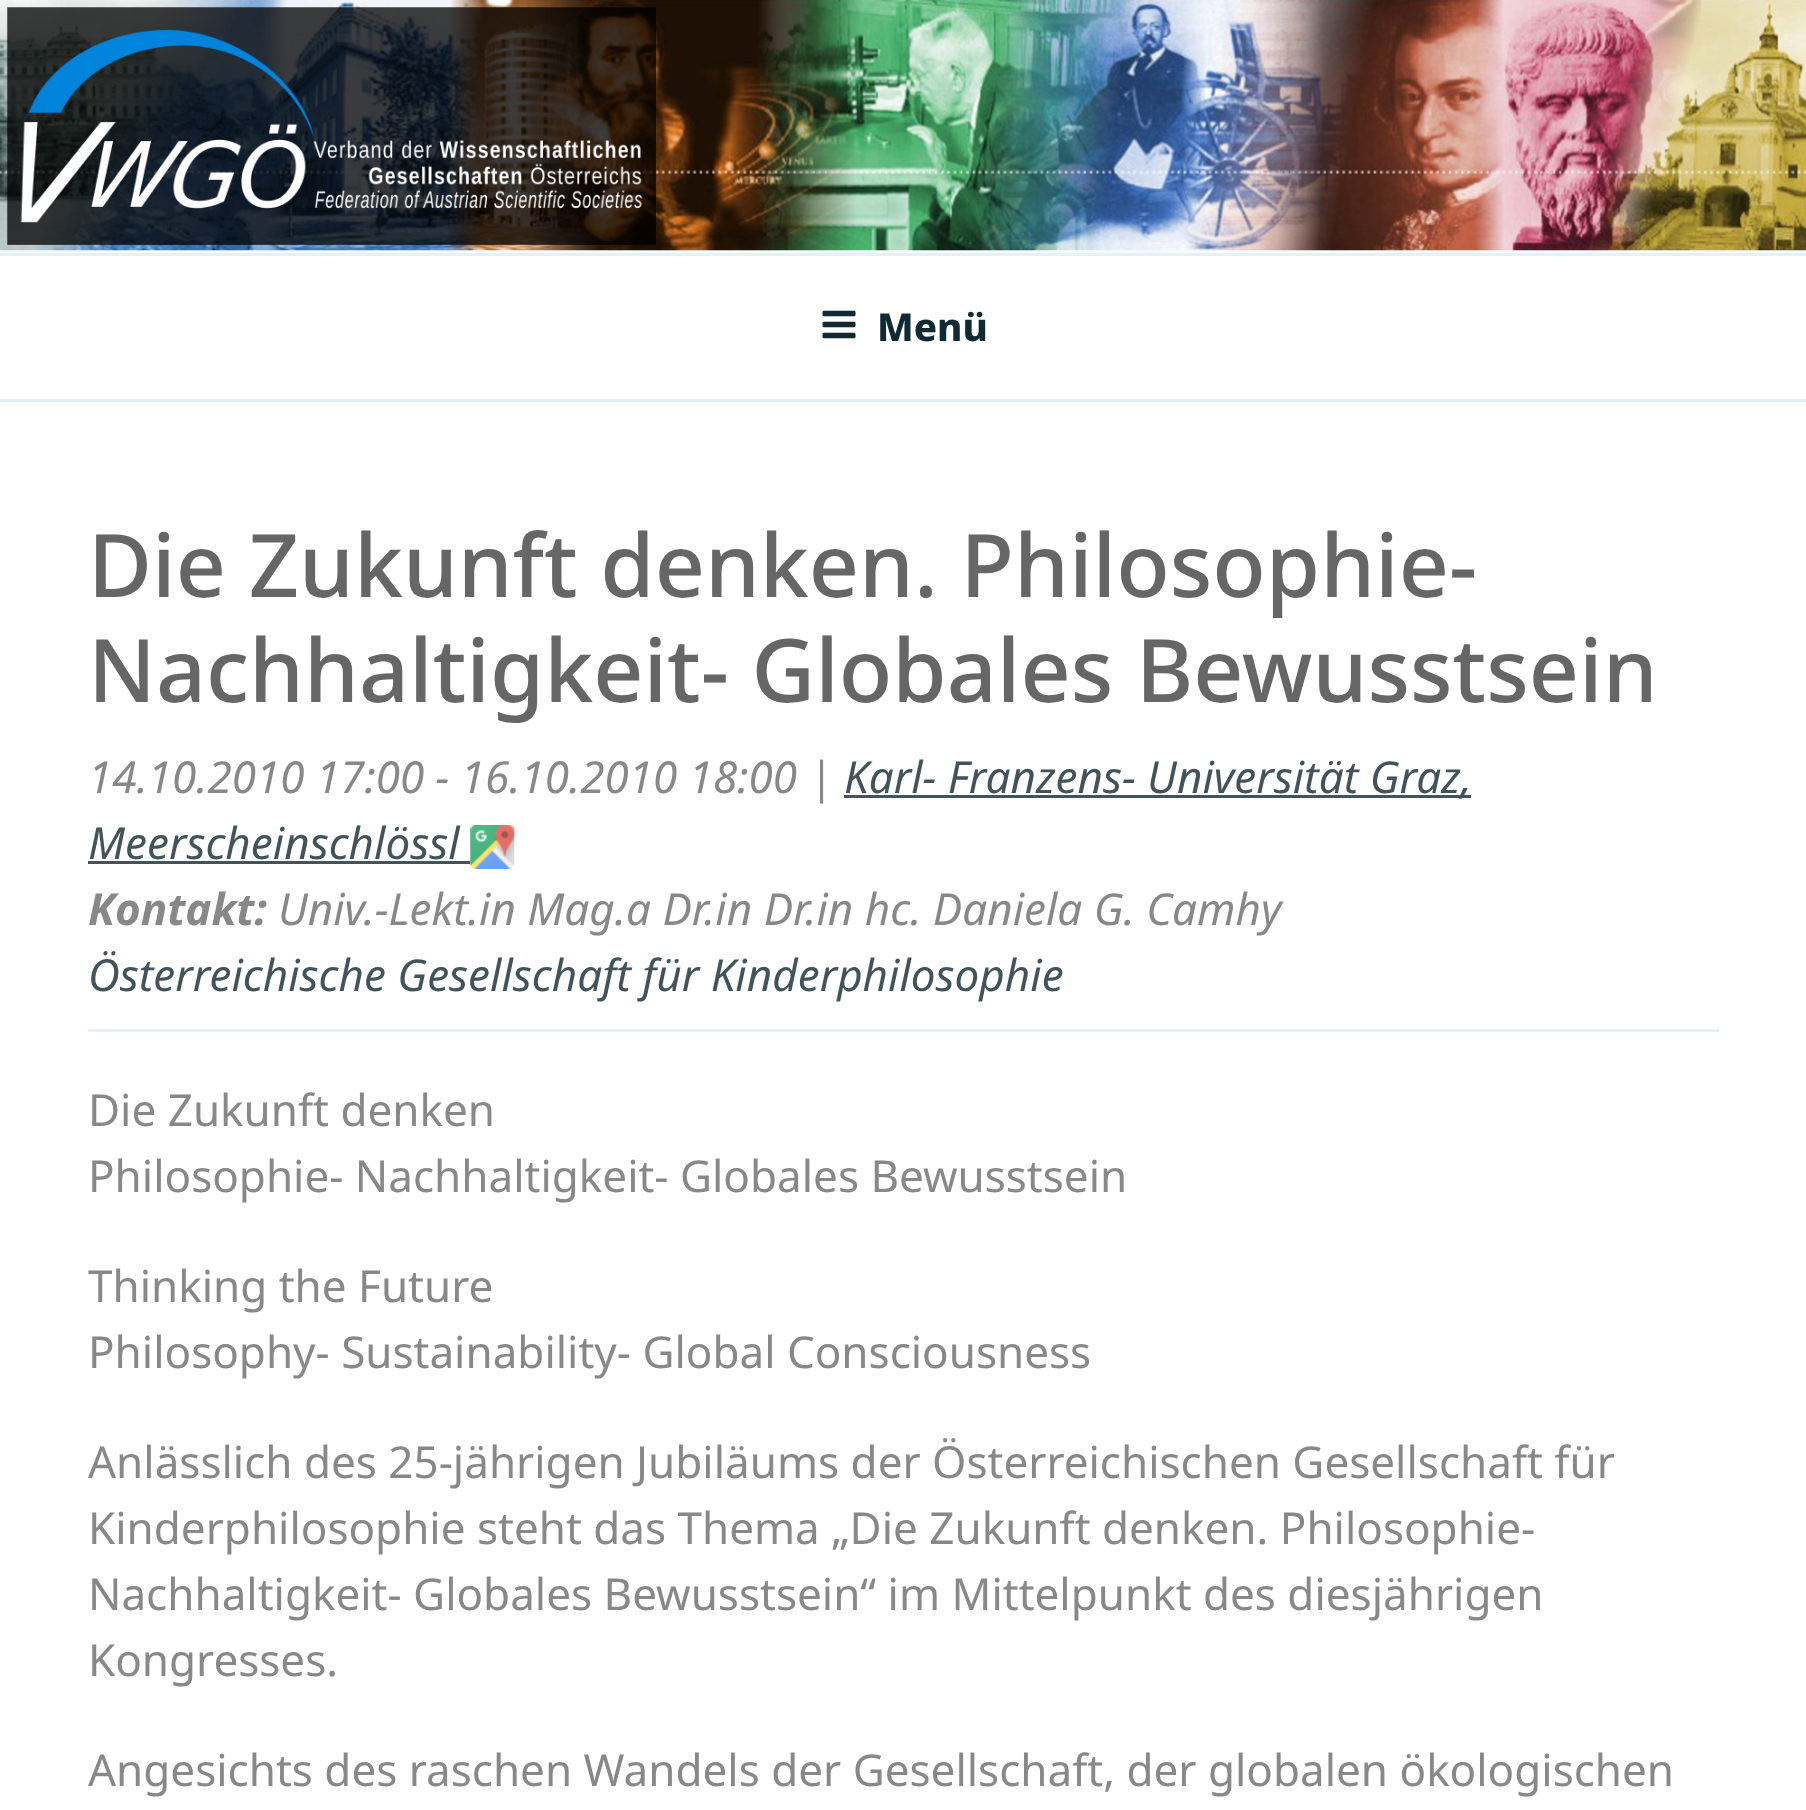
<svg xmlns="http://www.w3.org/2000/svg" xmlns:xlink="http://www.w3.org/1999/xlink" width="1806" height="1810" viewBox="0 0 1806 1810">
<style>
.cls-1{font:800 38.5px Noto Sans;fill:#112932}
.cls-2{font:500 87.6px Noto Sans;fill:#666666}
.cls-3{font:italic 44px Noto Sans;fill:#888888}
.cls-4{font:italic 44px Noto Sans;fill:#41545b}
.cls-5{font:italic bold 44px Noto Sans;fill:#888888}
.cls-6{font:44px Noto Sans;fill:#888888}
</style>
<rect width="100%" height="100%" fill="#ffffff"/>
<rect fill="#f7fbfc" x="0" y="232" width="1806" height="21"/>
<image xlink:href="image0.png" x="0" y="0" width="1806" height="251"/>
<rect fill="#e4f1f6" x="0" y="253" width="1806" height="3"/>
<rect fill="#e4f1f6" x="0" y="399" width="1806" height="3"/>
<image xlink:href="image1.png" x="822" y="310" width="34" height="29"/>
<rect fill="#41545b" x="844" y="795" width="627" height="3"/>
<rect fill="#41545b" x="88" y="861" width="382" height="3"/>
<image xlink:href="image2.png" x="470" y="825" width="45" height="44"/>
<rect fill="#e5f2f7" x="88" y="1029" width="1631" height="3"/>
<text class="cls-1" x="877" y="341">Menü</text>
<text class="cls-2"><tspan x="88" y="597">Die Zukunft denken. Philosophie-</tspan><tspan x="88" y="702">Nachhaltigkeit- Globales Bewusstsein</tspan></text>
<text class="cls-3" x="88" y="793">14.10.2010 17:00 - 16.10.2010 18:00 |</text>
<text class="cls-4" x="844" y="793">Karl- Franzens- Universität Graz,</text>
<text class="cls-4" x="88" y="859">Meerscheinschlössl</text>
<text class="cls-5" x="88" y="925">Kontakt:</text>
<text class="cls-3" x="278" y="925">Univ.-Lekt.in Mag.a Dr.in Dr.in hc. Daniela G. Camhy</text>
<text class="cls-4" x="88" y="991">Österreichische Gesellschaft für Kinderphilosophie</text>
<text class="cls-6"><tspan x="88" y="1126">Die Zukunft denken</tspan><tspan x="88" y="1192">Philosophie- Nachhaltigkeit- Globales Bewusstsein</tspan></text>
<text class="cls-6"><tspan x="88" y="1302">Thinking the Future</tspan><tspan x="88" y="1368">Philosophy- Sustainability- Global Consciousness</tspan></text>
<text class="cls-6"><tspan x="88" y="1478">Anlässlich des 25-jährigen Jubiläums der Österreichischen Gesellschaft für</tspan><tspan x="88" y="1544">Kinderphilosophie steht das Thema „Die Zukunft denken. Philosophie-</tspan><tspan x="88" y="1610">Nachhaltigkeit- Globales Bewusstsein“ im Mittelpunkt des diesjährigen</tspan><tspan x="88" y="1676">Kongresses.</tspan></text>
<text class="cls-6" x="88" y="1786">Angesichts des raschen Wandels der Gesellschaft, der globalen ökologischen</text>
</svg>
